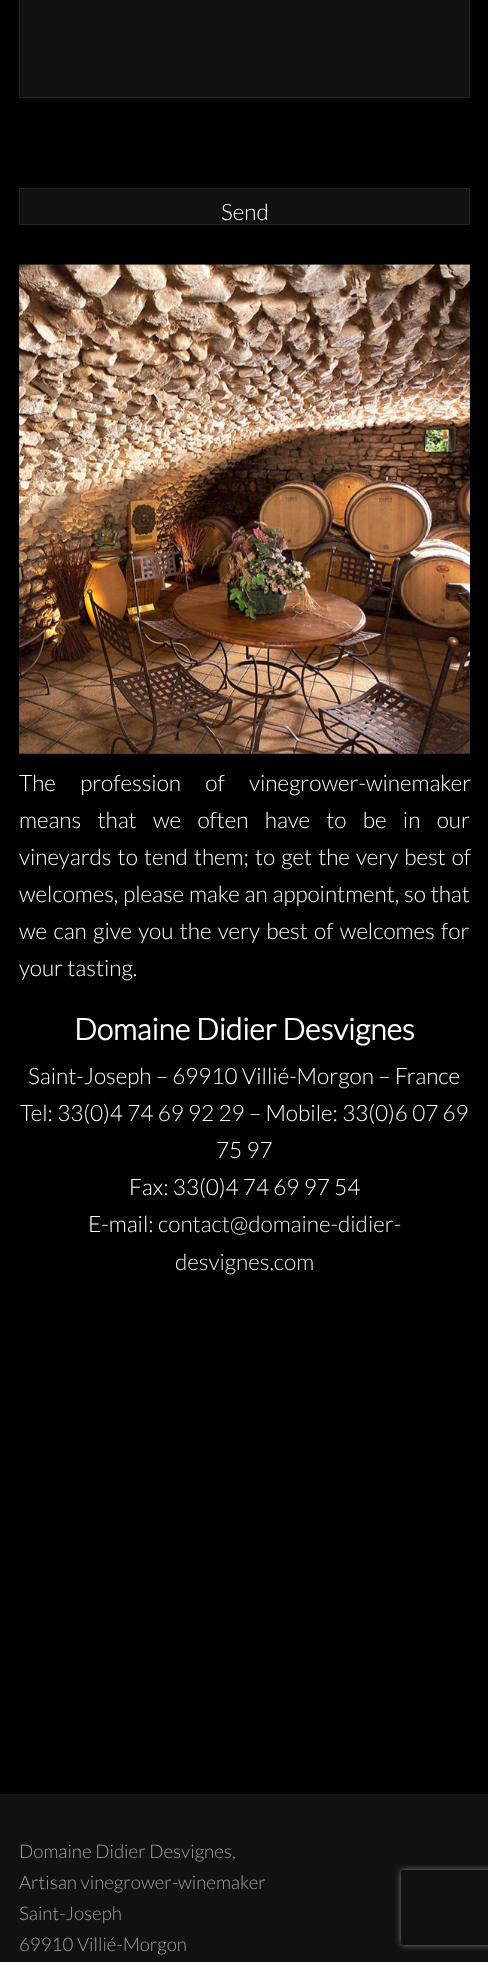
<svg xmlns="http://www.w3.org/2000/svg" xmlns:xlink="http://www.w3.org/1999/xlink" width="488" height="1962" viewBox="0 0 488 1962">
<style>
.cls-1{font:300 22.5px Lato;fill:#ffffff}
.cls-2{font:bold 30px Lato;fill:#ffffff}
.cls-3{font:300 22.5px Lato;fill:#ededed}
.cls-4{font:300 18.75px Lato;fill:#a0a0a0}
</style>
<defs>
<clipPath id="clip1"><path d="M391 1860H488V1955H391ZM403.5 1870H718.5C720 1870 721 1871 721 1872.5V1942.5C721 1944 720 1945 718.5 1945H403.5C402 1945 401 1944 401 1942.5V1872.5C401 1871 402 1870 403.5 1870Z" clip-rule="evenodd"/></clipPath>
</defs>
<rect width="100%" height="100%" fill="#000000"/>
<rect fill="#111111" stroke="#222222" x="19.5" y="-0.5" width="450" height="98"/>
<rect fill="#111111" x="0" y="1794" width="488" height="168"/>
<g clip-path="url(#clip1)">
<rect fill="#808080" filter="blur(3px)" x="401" y="1870" width="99" height="75" rx="2.5"/>
</g>
<rect fill="#111111" stroke="#222222" x="19.5" y="188.5" width="450" height="36"/>
<image xlink:href="image0.png" x="19" y="264" width="451" height="490"/>
<text class="cls-1" x="221" y="220">Send</text>
<text class="cls-1"><tspan x="19" y="791" word-spacing="20">The profession of vinegrower-winemaker</tspan><tspan x="19" y="828" word-spacing="12">means that we often have to be in our</tspan><tspan x="19" y="865" word-spacing="1.75">vineyards to tend them; to get the very best of</tspan><tspan x="19" y="902" word-spacing="0.5">welcomes, please make an appointment, so that</tspan><tspan x="19" y="939" word-spacing="2">we can give you the very best of welcomes for</tspan><tspan x="19" y="976">your tasting.</tspan></text>
<text class="cls-2" x="74" y="1040">Domaine Didier Desvignes</text>
<text class="cls-1" x="28" y="1084">Saint-Joseph – 69910 Villié-Morgon – France</text>
<text class="cls-1" x="20" y="1121">Tel: 33(0)4 74 69 92 29 – Mobile: 33(0)6 07 69</text>
<text class="cls-1" x="216" y="1158">75 97</text>
<text class="cls-1" x="129" y="1195">Fax: 33(0)4 74 69 97 54</text>
<text class="cls-1" x="88" y="1232">E-mail:</text>
<text class="cls-3" x="158" y="1232">contact@domaine-didier-</text>
<text class="cls-3" x="175" y="1270">desvignes.com</text>
<text class="cls-4"><tspan x="19" y="1858">Domaine Didier Desvignes,</tspan><tspan x="19" y="1889">Artisan vinegrower-winemaker</tspan><tspan x="19" y="1920">Saint-Joseph</tspan><tspan x="19" y="1951">69910 Villié-Morgon</tspan></text>
</svg>
